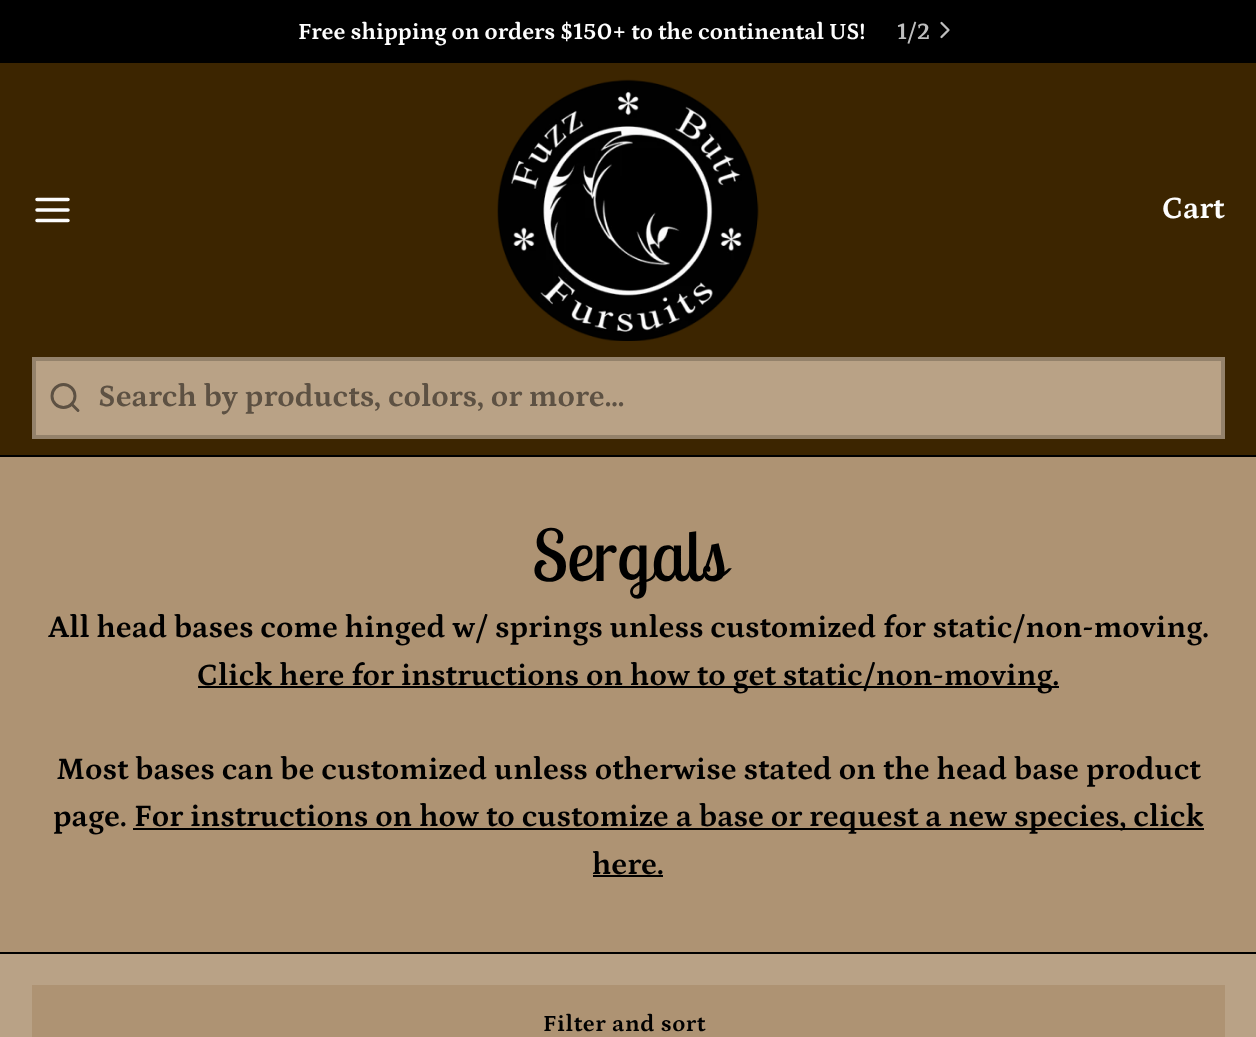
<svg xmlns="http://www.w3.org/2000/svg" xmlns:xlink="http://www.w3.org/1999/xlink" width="1256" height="1037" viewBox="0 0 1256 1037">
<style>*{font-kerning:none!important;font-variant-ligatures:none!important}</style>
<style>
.cls-1{font:bold 23.6px Petrona;fill:#fdfdfd}
.cls-2{font:bold 23.6px Petrona;fill:#bebebe}
.cls-3{font:bold 31.5px Petrona;fill:#fdfdfd}
.cls-4{font:bold 31.5px Petrona;fill:#5d5143}
.cls-5{font:71px Lobster Two;fill:#000000}
.cls-6{font:bold 31.5px Petrona;fill:#000000}
.cls-7{font:bold 23.6px Petrona;letter-spacing:0.6px;fill:#000000}
</style>
<rect width="100%" height="100%" fill="#b9a286"/>
<rect fill="#000000" x="0" y="0" width="1256" height="63"/>
<path fill="none" stroke="#bebebe" stroke-width="2.3" stroke-linecap="round" stroke-linejoin="round" d="M941.5 37L948.5 30L941.5 23"/>
<rect fill="#3c2500" x="0" y="63" width="1256" height="392"/>
<rect fill="#000000" x="0" y="455" width="1256" height="2"/>
<path fill="none" stroke="#fdfdfd" stroke-width="3.5" stroke-linecap="round" stroke-linejoin="round" d="M37 210H68M37 199.5H68M37 220.5H68"/>
<image xlink:href="image0.png" x="497" y="79" width="262" height="262"/>
<rect fill="#b9a286" stroke="#94826b" stroke-width="4" x="34" y="359" width="1189" height="78"/>
<circle fill="none" stroke="#5d5143" stroke-width="2.9" cx="63.5" cy="396" r="11.5"/>
<path fill="none" stroke="#5d5143" stroke-width="2.9" stroke-linecap="round" stroke-linejoin="round" d="M78 410.5L71.5 404"/>
<rect fill="#ae9373" x="0" y="457" width="1256" height="495"/>
<rect fill="#000000" x="0" y="952" width="1256" height="2"/>
<rect fill="#000000" x="198" y="686" width="861" height="2"/>
<rect fill="#000000" x="133" y="828" width="1071" height="2"/>
<rect fill="#000000" x="593" y="875" width="70" height="2"/>
<rect fill="#ae9373" x="32" y="985" width="1193" height="52"/>
<text class="cls-1" x="298" y="39">Free shipping on orders $150+ to the continental US!</text>
<text class="cls-2" x="897" y="39">1/2</text>
<text class="cls-3" x="1162" y="218">Cart</text>
<text class="cls-4" x="98" y="406">Search by products, colors, or more...</text>
<text class="cls-5" x="532" y="581">Sergals</text>
<text class="cls-6" x="48" y="637">All head bases come hinged w/ springs unless customized for static/non-moving.</text>
<text class="cls-6" x="197" y="685">Click here for instructions on how to get static/non-moving.</text>
<text class="cls-6" x="56" y="779">Most bases can be customized unless otherwise stated on the head base product</text>
<text class="cls-6" x="53" y="826">page.</text>
<text class="cls-6" x="134" y="826">For instructions on how to customize a base or request a new species, click</text>
<text class="cls-6" x="592" y="874">here.</text>
<text class="cls-7" x="543" y="1031">Filter and sort</text>
</svg>
